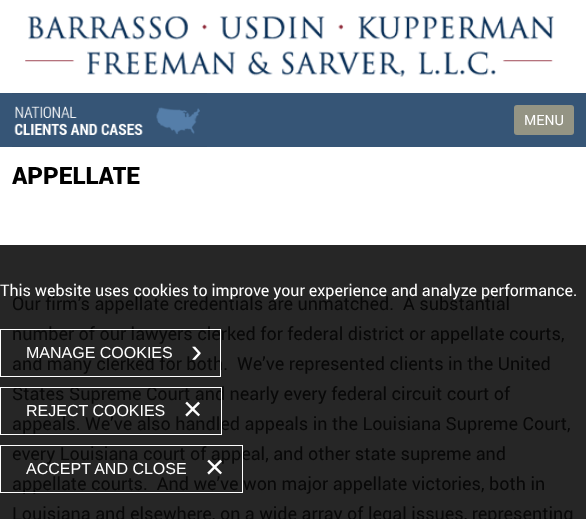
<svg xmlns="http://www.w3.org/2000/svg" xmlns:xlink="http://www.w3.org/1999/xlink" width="586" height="519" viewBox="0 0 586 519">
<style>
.cls-1{font:14px roboto;fill:#ffffff}
.cls-2{font:900 24px Roboto;fill:#000000}
.cls-3{font:18px roboto;fill:#080808}
.cls-4{font:16px roboto;fill:#ffffff}
.cls-5{font:16px Liberation Sans;fill:#ffffff}
.cls-6{font:33px Liberation Sans;fill:#ffffff}
</style>
<rect width="100%" height="100%" fill="#ffffff"/>
<rect fill="#262626" x="0" y="245" width="586" height="274"/>
<image xlink:href="image0.png" x="25" y="16" width="529" height="61"/>
<rect fill="#365576" x="0" y="93" width="586" height="54"/>
<image xlink:href="image1.png" x="12" y="93" width="195" height="54"/>
<rect fill="#949484" x="514" y="105" width="60" height="30" rx="3"/>
<text class="cls-1" x="524" y="125">MENU</text>
<text class="cls-2" x="12" y="184">APPELLATE</text>
<text class="cls-3" xml:space="preserve"><tspan x="12" y="310">Our firm’s appellate credentials are unmatched.  A substantial</tspan><tspan x="12" y="340">number of our lawyers clerked for federal district or appellate courts,</tspan><tspan x="12" y="370">and many clerked for both.  We’ve represented clients in the United</tspan><tspan x="12" y="400">States Supreme Court and nearly every federal circuit court of</tspan><tspan x="12" y="430">appeals. We’ve also handled appeals in the Louisiana Supreme Court,</tspan><tspan x="12" y="460">every Louisiana court of appeal, and other state supreme and</tspan><tspan x="12" y="490">appellate courts.  And we’ve won major appellate victories, both in</tspan><tspan x="12" y="520">Louisiana and elsewhere, on a wide array of legal issues, representing</tspan></text>
<text class="cls-4" x="0" y="296">This website uses cookies to improve your experience and analyze performance.</text>
<rect fill="none" stroke="#ffffff" x="0.5" y="329.5" width="220" height="47"/>
<text class="cls-5" x="26" y="358">MANAGE COOKIES</text>
<text class="cls-6" x="191" y="362">›</text>
<rect fill="none" stroke="#ffffff" x="0.5" y="387.5" width="221" height="47"/>
<text class="cls-5" x="26" y="416">REJECT COOKIES</text>
<text class="cls-6" x="183" y="420">×</text>
<rect fill="none" stroke="#ffffff" x="0.5" y="445.5" width="242" height="47"/>
<text class="cls-5" x="26" y="474">ACCEPT AND CLOSE</text>
<text class="cls-6" x="205" y="478">×</text>
</svg>
